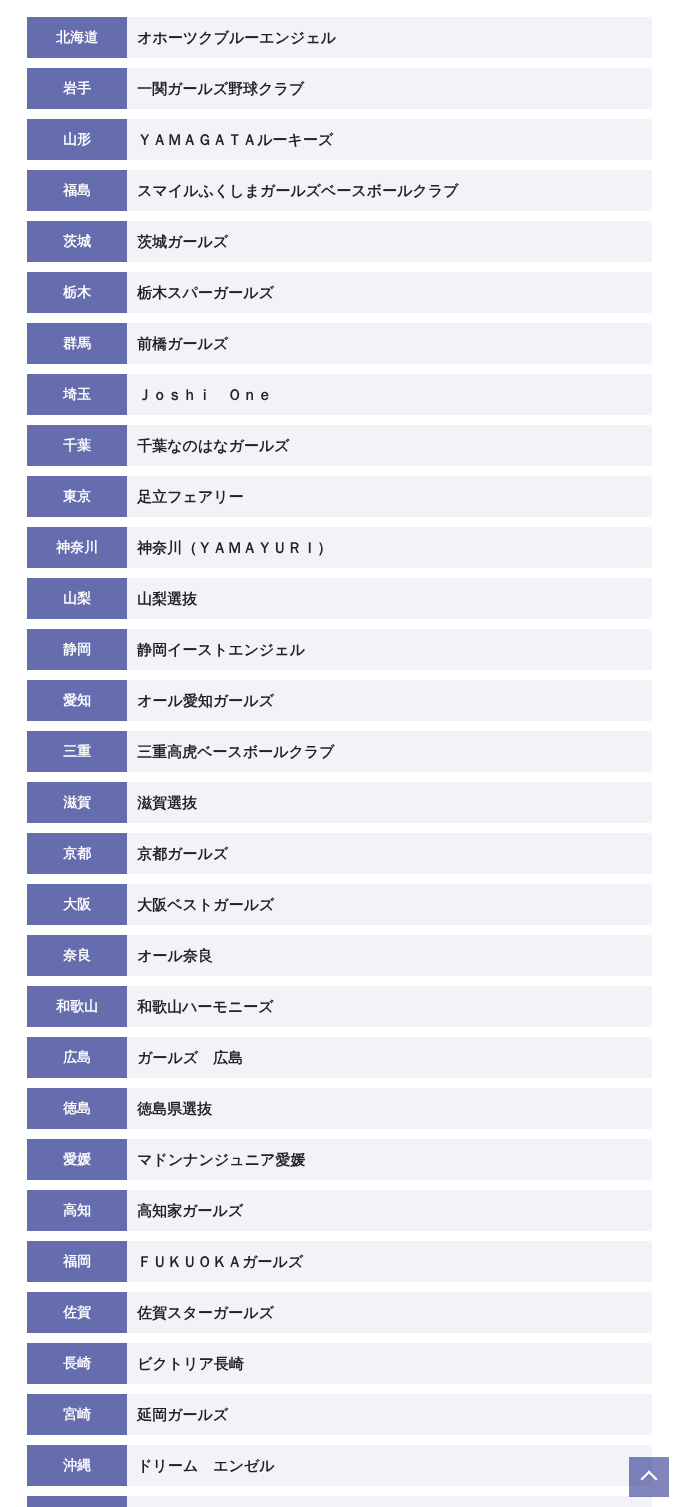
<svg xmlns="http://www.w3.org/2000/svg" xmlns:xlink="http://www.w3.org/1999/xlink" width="679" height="1507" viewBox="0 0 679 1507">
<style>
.cls-1{font:bold 14px WenQuanYi Zen Hei;fill:#ffffff}
.cls-2{font:bold 15px WenQuanYi Zen Hei;fill:#222222}
</style>
<rect width="100%" height="100%" fill="#ffffff"/>
<rect fill="#8085bc" x="629" y="1457" width="40" height="40"/>
<rect fill="#666daf" x="27" y="17" width="100" height="41"/>
<rect fill="#f2f3f8" x="127" y="17" width="525" height="41"/>
<rect fill="#666daf" x="27" y="68" width="100" height="41"/>
<rect fill="#f2f3f8" x="127" y="68" width="525" height="41"/>
<rect fill="#666daf" x="27" y="119" width="100" height="41"/>
<rect fill="#f2f3f8" x="127" y="119" width="525" height="41"/>
<rect fill="#666daf" x="27" y="170" width="100" height="41"/>
<rect fill="#f2f3f8" x="127" y="170" width="525" height="41"/>
<rect fill="#666daf" x="27" y="221" width="100" height="41"/>
<rect fill="#f2f3f8" x="127" y="221" width="525" height="41"/>
<rect fill="#666daf" x="27" y="272" width="100" height="41"/>
<rect fill="#f2f3f8" x="127" y="272" width="525" height="41"/>
<rect fill="#666daf" x="27" y="323" width="100" height="41"/>
<rect fill="#f2f3f8" x="127" y="323" width="525" height="41"/>
<rect fill="#666daf" x="27" y="374" width="100" height="41"/>
<rect fill="#f2f3f8" x="127" y="374" width="525" height="41"/>
<rect fill="#666daf" x="27" y="425" width="100" height="41"/>
<rect fill="#f2f3f8" x="127" y="425" width="525" height="41"/>
<rect fill="#666daf" x="27" y="476" width="100" height="41"/>
<rect fill="#f2f3f8" x="127" y="476" width="525" height="41"/>
<rect fill="#666daf" x="27" y="527" width="100" height="41"/>
<rect fill="#f2f3f8" x="127" y="527" width="525" height="41"/>
<rect fill="#666daf" x="27" y="578" width="100" height="41"/>
<rect fill="#f2f3f8" x="127" y="578" width="525" height="41"/>
<rect fill="#666daf" x="27" y="629" width="100" height="41"/>
<rect fill="#f2f3f8" x="127" y="629" width="525" height="41"/>
<rect fill="#666daf" x="27" y="680" width="100" height="41"/>
<rect fill="#f2f3f8" x="127" y="680" width="525" height="41"/>
<rect fill="#666daf" x="27" y="731" width="100" height="41"/>
<rect fill="#f2f3f8" x="127" y="731" width="525" height="41"/>
<rect fill="#666daf" x="27" y="782" width="100" height="41"/>
<rect fill="#f2f3f8" x="127" y="782" width="525" height="41"/>
<rect fill="#666daf" x="27" y="833" width="100" height="41"/>
<rect fill="#f2f3f8" x="127" y="833" width="525" height="41"/>
<rect fill="#666daf" x="27" y="884" width="100" height="41"/>
<rect fill="#f2f3f8" x="127" y="884" width="525" height="41"/>
<rect fill="#666daf" x="27" y="935" width="100" height="41"/>
<rect fill="#f2f3f8" x="127" y="935" width="525" height="41"/>
<rect fill="#666daf" x="27" y="986" width="100" height="41"/>
<rect fill="#f2f3f8" x="127" y="986" width="525" height="41"/>
<rect fill="#666daf" x="27" y="1037" width="100" height="41"/>
<rect fill="#f2f3f8" x="127" y="1037" width="525" height="41"/>
<rect fill="#666daf" x="27" y="1088" width="100" height="41"/>
<rect fill="#f2f3f8" x="127" y="1088" width="525" height="41"/>
<rect fill="#666daf" x="27" y="1139" width="100" height="41"/>
<rect fill="#f2f3f8" x="127" y="1139" width="525" height="41"/>
<rect fill="#666daf" x="27" y="1190" width="100" height="41"/>
<rect fill="#f2f3f8" x="127" y="1190" width="525" height="41"/>
<rect fill="#666daf" x="27" y="1241" width="100" height="41"/>
<rect fill="#f2f3f8" x="127" y="1241" width="525" height="41"/>
<rect fill="#666daf" x="27" y="1292" width="100" height="41"/>
<rect fill="#f2f3f8" x="127" y="1292" width="525" height="41"/>
<rect fill="#666daf" x="27" y="1343" width="100" height="41"/>
<rect fill="#f2f3f8" x="127" y="1343" width="525" height="41"/>
<rect fill="#666daf" x="27" y="1394" width="100" height="41"/>
<rect fill="#f2f3f8" x="127" y="1394" width="525" height="41"/>
<rect fill="#666daf" x="27" y="1445" width="100" height="41"/>
<rect fill="#f2f3f8" x="127" y="1445" width="525" height="41"/>
<rect fill="#797fb9" x="629" y="1457" width="23" height="29"/>
<rect fill="#666daf" x="27" y="1496" width="100" height="11"/>
<rect fill="#f2f3f8" x="127" y="1496" width="525" height="11"/>
<rect fill="#797fb9" x="629" y="1496" width="23" height="1"/>
<path fill="#ffffff" d="M640.5 1479L649 1470.5L650.5 1472L642 1480.5Z"/>
<path fill="#ffffff" d="M647.5 1472L649 1470.5L657.5 1479L656 1480.5Z"/>
<text class="cls-1" x="56" y="42">北海道</text>
<text class="cls-2" x="137" y="43">オホーツクブルーエンジェル</text>
<text class="cls-1" x="63" y="93">岩手</text>
<text class="cls-2" x="137" y="94">一関ガールズ野球クラブ</text>
<text class="cls-1" x="63" y="144">山形</text>
<text class="cls-2" x="137" y="145">ＹＡＭＡＧＡＴＡルーキーズ</text>
<text class="cls-1" x="63" y="195">福島</text>
<text class="cls-2" x="137" y="196">スマイルふくしまガールズベースボールクラブ</text>
<text class="cls-1" x="63" y="246">茨城</text>
<text class="cls-2" x="137" y="247">茨城ガールズ</text>
<text class="cls-1" x="63" y="297">栃木</text>
<text class="cls-2" x="137" y="298">栃木スパーガールズ</text>
<text class="cls-1" x="63" y="348">群馬</text>
<text class="cls-2" x="137" y="349">前橋ガールズ</text>
<text class="cls-1" x="63" y="399">埼玉</text>
<text class="cls-2" x="137" y="400">Ｊｏｓｈｉ　Ｏｎｅ</text>
<text class="cls-1" x="63" y="450">千葉</text>
<text class="cls-2" x="137" y="451">千葉なのはなガールズ</text>
<text class="cls-1" x="63" y="501">東京</text>
<text class="cls-2" x="137" y="502">足立フェアリー</text>
<text class="cls-1" x="56" y="552">神奈川</text>
<text class="cls-2" x="137" y="553">神奈川（ＹＡＭＡＹＵＲＩ）</text>
<text class="cls-1" x="63" y="603">山梨</text>
<text class="cls-2" x="137" y="604">山梨選抜</text>
<text class="cls-1" x="63" y="654">静岡</text>
<text class="cls-2" x="137" y="655">静岡イーストエンジェル</text>
<text class="cls-1" x="63" y="705">愛知</text>
<text class="cls-2" x="137" y="706">オール愛知ガールズ</text>
<text class="cls-1" x="63" y="756">三重</text>
<text class="cls-2" x="137" y="757">三重高虎ベースボールクラブ</text>
<text class="cls-1" x="63" y="807">滋賀</text>
<text class="cls-2" x="137" y="808">滋賀選抜</text>
<text class="cls-1" x="63" y="858">京都</text>
<text class="cls-2" x="137" y="859">京都ガールズ</text>
<text class="cls-1" x="63" y="909">大阪</text>
<text class="cls-2" x="137" y="910">大阪ベストガールズ</text>
<text class="cls-1" x="63" y="960">奈良</text>
<text class="cls-2" x="137" y="961">オール奈良</text>
<text class="cls-1" x="56" y="1011">和歌山</text>
<text class="cls-2" x="137" y="1012">和歌山ハーモニーズ</text>
<text class="cls-1" x="63" y="1062">広島</text>
<text class="cls-2" x="137" y="1063">ガールズ　広島</text>
<text class="cls-1" x="63" y="1113">徳島</text>
<text class="cls-2" x="137" y="1114">徳島県選抜</text>
<text class="cls-1" x="63" y="1164">愛媛</text>
<text class="cls-2" x="137" y="1165">マドンナンジュニア愛媛</text>
<text class="cls-1" x="63" y="1215">高知</text>
<text class="cls-2" x="137" y="1216">高知家ガールズ</text>
<text class="cls-1" x="63" y="1266">福岡</text>
<text class="cls-2" x="137" y="1267">ＦＵＫＵＯＫＡガールズ</text>
<text class="cls-1" x="63" y="1317">佐賀</text>
<text class="cls-2" x="137" y="1318">佐賀スターガールズ</text>
<text class="cls-1" x="63" y="1368">長崎</text>
<text class="cls-2" x="137" y="1369">ビクトリア長崎</text>
<text class="cls-1" x="63" y="1419">宮崎</text>
<text class="cls-2" x="137" y="1420">延岡ガールズ</text>
<text class="cls-1" x="63" y="1470">沖縄</text>
<text class="cls-2" x="137" y="1471">ドリーム　エンゼル</text>
</svg>
